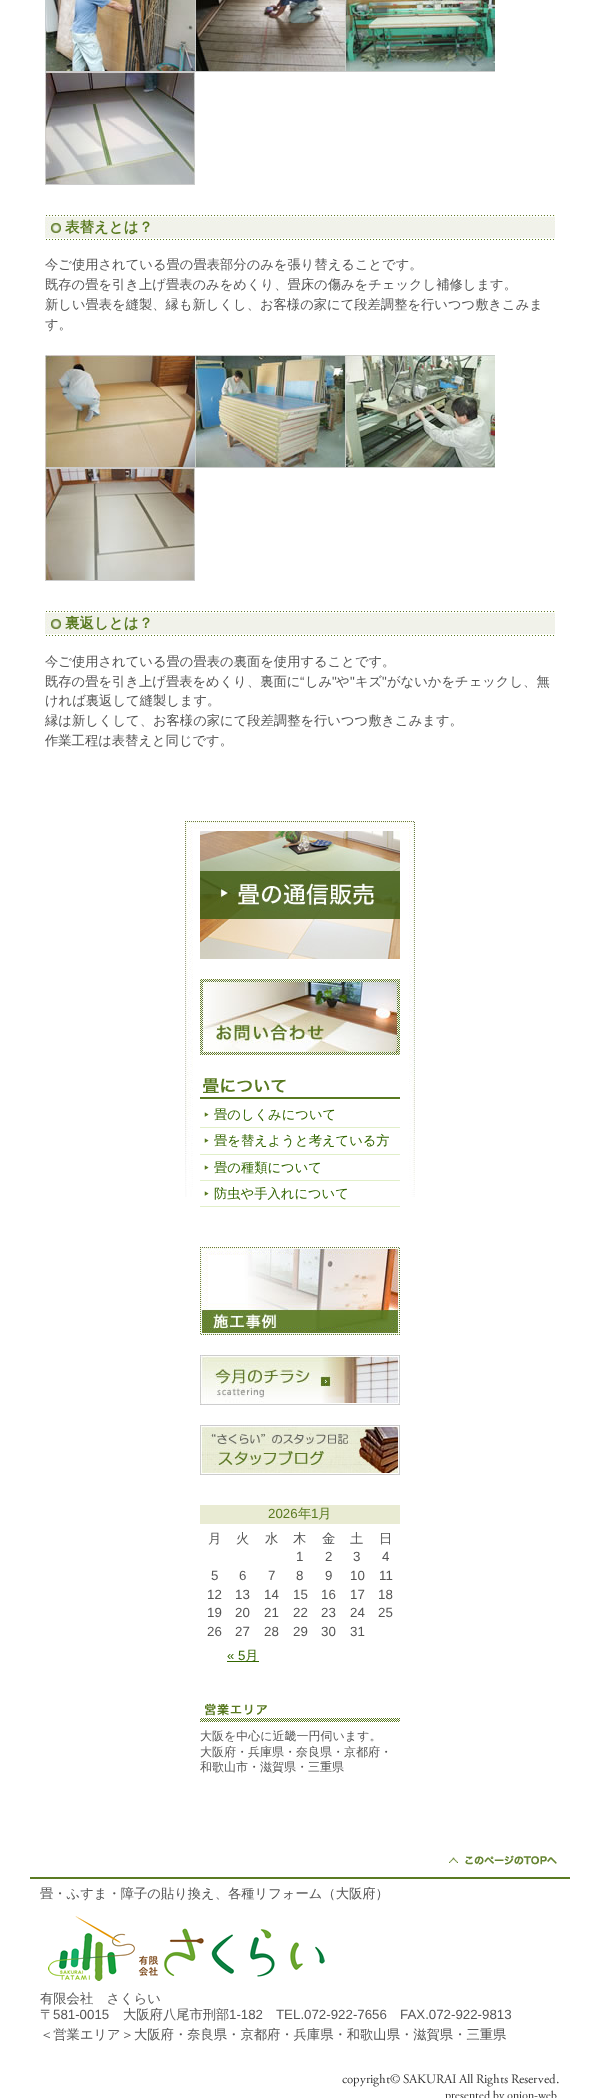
<svg xmlns="http://www.w3.org/2000/svg" xmlns:xlink="http://www.w3.org/1999/xlink" width="600" height="2098" viewBox="0 0 600 2098">
<style>
.cls-1{font:bold 14.5px WenQuanYi Zen Hei;fill:#58791f}
.cls-2{font:500 13.3px WenQuanYi Zen Hei;fill:#555555}
.cls-3{font:13.3px Liberation Sans;fill:#555555}
.cls-4{font:500 13.3px WenQuanYi Zen Hei;fill:#336600}
.cls-5{font:13.3px Liberation Sans;fill:#58791f}
.cls-6{font:500 13.3px WenQuanYi Zen Hei;fill:#58791f}
.cls-7{font:13.3px Liberation Sans;fill:#336600}
.cls-8{font:500 12px WenQuanYi Zen Hei;fill:#555555}
</style>
<rect width="100%" height="100%" fill="#ffffff"/>
<image xlink:href="image0.png" x="45" y="0" width="150" height="72"/>
<image xlink:href="image1.png" x="195" y="0" width="150" height="72"/>
<image xlink:href="image2.png" x="345" y="0" width="150" height="72"/>
<image xlink:href="image3.png" x="45" y="72" width="150" height="113"/>
<image xlink:href="image4.png" x="45" y="215" width="510" height="25"/>
<image xlink:href="image5.png" x="45" y="355" width="150" height="113"/>
<image xlink:href="image6.png" x="195" y="355" width="150" height="113"/>
<image xlink:href="image7.png" x="345" y="355" width="150" height="113"/>
<image xlink:href="image8.png" x="45" y="468" width="150" height="113"/>
<image xlink:href="image4.png" x="45" y="611" width="510" height="25"/>
<image xlink:href="image9.png" x="185" y="821" width="230" height="376"/>
<image xlink:href="image10.png" x="200" y="831" width="200" height="128"/>
<image xlink:href="image11.png" x="200" y="979" width="200" height="76"/>
<image xlink:href="image12.png" x="200" y="1078" width="200" height="21"/>
<rect fill="#e1efc9" x="200" y="1127" width="200" height="1"/>
<image xlink:href="image13.png" x="204" y="1112" width="5" height="5"/>
<rect fill="#e1efc9" x="200" y="1154" width="200" height="1"/>
<image xlink:href="image13.png" x="204" y="1138" width="5" height="5"/>
<rect fill="#e1efc9" x="200" y="1180" width="200" height="1"/>
<image xlink:href="image13.png" x="204" y="1165" width="5" height="5"/>
<rect fill="#e1efc9" x="200" y="1206" width="200" height="1"/>
<image xlink:href="image13.png" x="204" y="1191" width="5" height="5"/>
<image xlink:href="image14.png" x="200" y="1247" width="200" height="88"/>
<image xlink:href="image15.png" x="200" y="1355" width="200" height="50"/>
<image xlink:href="image16.png" x="200" y="1425" width="200" height="50"/>
<rect fill="#e9ebd3" x="200" y="1505" width="200" height="19"/>
<rect fill="#336600" x="227" y="1661" width="32" height="1"/>
<image xlink:href="image17.png" x="200" y="1703" width="200" height="19"/>
<image xlink:href="image18.png" x="30" y="1877" width="540" height="2"/>
<image xlink:href="image19.png" x="449" y="1855" width="108" height="10"/>
<image xlink:href="image20.png" x="48" y="1916" width="277" height="65"/>
<image xlink:href="image21.png" x="342" y="2073" width="217" height="14"/>
<image xlink:href="image22.png" x="445" y="2090" width="112" height="8"/>
<text class="cls-1" x="65" y="232">表替えとは？</text>
<text class="cls-2"><tspan x="45" y="269">今ご使用されている畳の畳表部分のみを張り替えることです。</tspan><tspan x="45" y="289">既存の畳を引き上げ畳表のみをめくり、畳床の傷みをチェックし補修します。</tspan><tspan x="45" y="309">新しい畳表を縫製、縁も新しくし、お客様の家にて段差調整を行いつつ敷きこみま</tspan><tspan x="45" y="329">す。</tspan></text>
<text class="cls-1" x="65" y="628">裏返しとは？</text>
<text class="cls-2"><tspan x="45" y="666">今ご使用されている畳の畳表の裏面を使用することです。</tspan><tspan x="45" y="686">既存の畳を引き上げ畳表をめくり、裏面に</tspan></text>
<text class="cls-3" x="300" y="686">“</text>
<text class="cls-2" x="305" y="686">しみ</text>
<text class="cls-3" x="332" y="686">"</text>
<text class="cls-2" x="336" y="686">や</text>
<text class="cls-3" x="350" y="686">"</text>
<text class="cls-2" x="355" y="686">キズ</text>
<text class="cls-3" x="382" y="686">"</text>
<text class="cls-2" x="387" y="686">がないかをチェックし、無</text>
<text class="cls-2"><tspan x="45" y="705">ければ裏返して縫製します。</tspan><tspan x="45" y="725">縁は新しくして、お客様の家にて段差調整を行いつつ敷きこみます。</tspan><tspan x="45" y="745">作業工程は表替えと同じです。</tspan></text>
<text class="cls-4"><tspan x="214" y="1119">畳のしくみについて</tspan><tspan x="214" y="1145">畳を替えようと考えている方</tspan></text>
<text class="cls-4"><tspan x="214" y="1172">畳の種類について</tspan><tspan x="214" y="1198">防虫や手入れについて</tspan></text>
<text class="cls-5" x="268" y="1518">2026</text>
<text class="cls-6" x="298" y="1518">年</text>
<text class="cls-5" x="311" y="1518">1</text>
<text class="cls-6" x="318" y="1518">月</text>
<text class="cls-2" x="208" y="1543">月</text>
<text class="cls-2" x="236" y="1543">火</text>
<text class="cls-2" x="265" y="1543">水</text>
<text class="cls-2" x="293" y="1543">木</text>
<text class="cls-2" x="322" y="1543">金</text>
<text class="cls-2" x="350" y="1543">土</text>
<text class="cls-2" x="379" y="1543">日</text>
<text class="cls-3" x="296" y="1561">1</text>
<text class="cls-3" x="325" y="1561">2</text>
<text class="cls-3" x="353" y="1561">3</text>
<text class="cls-3" x="382" y="1561">4</text>
<text class="cls-3" x="211" y="1580">5</text>
<text class="cls-3" x="239" y="1580">6</text>
<text class="cls-3" x="268" y="1580">7</text>
<text class="cls-3" x="296" y="1580">8</text>
<text class="cls-3" x="325" y="1580">9</text>
<text class="cls-3" x="350" y="1580">10</text>
<text class="cls-3" x="379" y="1580">11</text>
<text class="cls-3" x="207" y="1599">12</text>
<text class="cls-3" x="235" y="1599">13</text>
<text class="cls-3" x="264" y="1599">14</text>
<text class="cls-3" x="293" y="1599">15</text>
<text class="cls-3" x="321" y="1599">16</text>
<text class="cls-3" x="350" y="1599">17</text>
<text class="cls-3" x="378" y="1599">18</text>
<text class="cls-3" x="207" y="1617">19</text>
<text class="cls-3" x="235" y="1617">20</text>
<text class="cls-3" x="264" y="1617">21</text>
<text class="cls-3" x="293" y="1617">22</text>
<text class="cls-3" x="321" y="1617">23</text>
<text class="cls-3" x="350" y="1617">24</text>
<text class="cls-3" x="378" y="1617">25</text>
<text class="cls-3" x="207" y="1636">26</text>
<text class="cls-3" x="235" y="1636">27</text>
<text class="cls-3" x="264" y="1636">28</text>
<text class="cls-3" x="293" y="1636">29</text>
<text class="cls-3" x="321" y="1636">30</text>
<text class="cls-3" x="350" y="1636">31</text>
<text class="cls-7" x="227" y="1660">« 5</text>
<text class="cls-4" x="245" y="1660">月</text>
<text class="cls-8"><tspan x="200" y="1740">大阪を中心に近畿一円伺います。</tspan><tspan x="200" y="1756">大阪府・兵庫県・奈良県・京都府・</tspan><tspan x="200" y="1771">和歌山市・滋賀県・三重県</tspan></text>
<text class="cls-2" x="40" y="1898">畳・ふすま・障子の貼り換え、各種リフォーム（大阪府）</text>
<text class="cls-2"><tspan x="40" y="2003">有限会社　さくらい</tspan><tspan x="40" y="2019">〒</tspan></text>
<text class="cls-3" x="53" y="2019">581-0015</text>
<text class="cls-2" x="123" y="2019">大阪府八尾市刑部</text>
<text class="cls-3" x="229" y="2019">1-182</text>
<text class="cls-3" x="276" y="2019">TEL.072-922-7656</text>
<text class="cls-3" x="400" y="2019">FAX.072-922-9813</text>
<text class="cls-2" x="40" y="2039">＜営業エリア＞大阪府・奈良県・京都府・兵庫県・和歌山県・滋賀県・三重県</text>
</svg>
